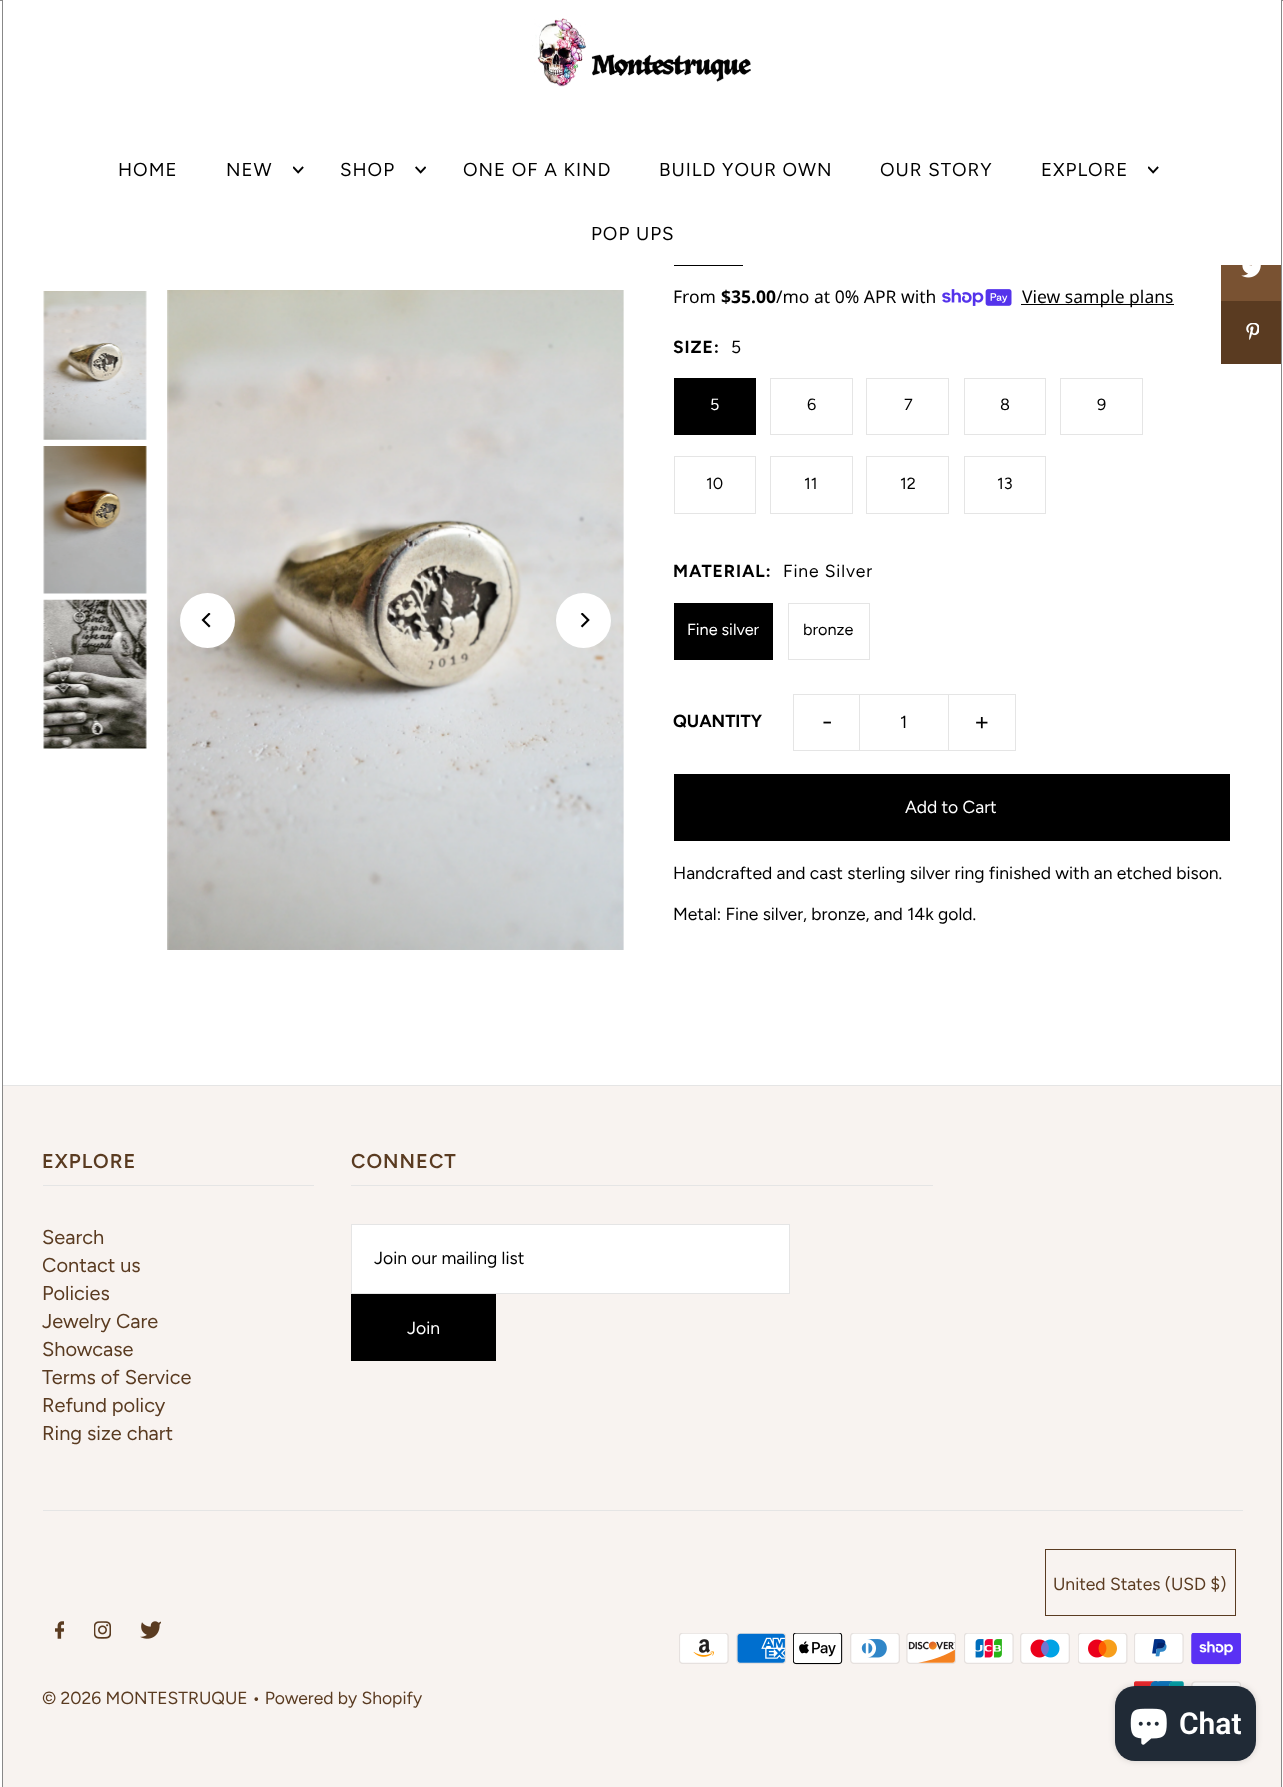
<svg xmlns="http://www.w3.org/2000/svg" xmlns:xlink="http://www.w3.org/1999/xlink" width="1283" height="1787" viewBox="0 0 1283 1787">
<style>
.cls-1{font:18.75px Figtree;letter-spacing:1px;fill:#000000}
.cls-2{font:17.5px Noto Sans;fill:#000000}
.cls-3{font:bold 17.5px Noto Sans;fill:#000000}
.cls-4{font:bold 17.5px Figtree;letter-spacing:0.9px;fill:#000000}
.cls-5{font:17.5px Figtree;letter-spacing:0.9px;fill:#000000}
.cls-6{font:16.25px Figtree;fill:#ffffff}
.cls-7{font:16.25px Figtree;fill:#000000}
.cls-8{font:bold 17.5px Figtree;fill:#000000}
.cls-9{font:25px Figtree;fill:#000000}
.cls-10{font:17.5px Figtree;fill:#000000}
.cls-11{font:17.5px Figtree;fill:#ffffff}
.cls-12{font:600 20px Figtree;letter-spacing:1px;fill:#5a3b21}
.cls-13{font:20px Figtree;fill:#5a3b21}
.cls-14{font:17.5px Figtree;fill:#5a3b21}
.cls-15{font:600 30px Roboto;fill:#ffffff}
</style>
<rect width="100%" height="100%" fill="#ffffff"/>
<rect fill="#e5e5e5" x="0" y="1085" width="1283" height="1"/>
<rect fill="#ffffff" x="0" y="1085" width="2" height="1"/>
<rect fill="none" stroke="#888888" x="-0.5" y="0.5" width="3" height="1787"/>
<image xlink:href="image0.png" x="532" y="18" width="219" height="69"/>
<image xlink:href="image1.png" x="293" y="166" width="11" height="8"/>
<image xlink:href="image2.png" x="415" y="166" width="11" height="8"/>
<image xlink:href="image1.png" x="1148" y="166" width="11" height="8"/>
<image xlink:href="image3.png" x="43" y="291" width="104" height="149"/>
<image xlink:href="image4.png" x="43" y="446" width="104" height="148"/>
<image xlink:href="image5.png" x="43" y="599" width="104" height="150"/>
<image xlink:href="image6.png" x="167" y="290" width="457" height="660"/>
<circle fill="#ffffff" cx="207.5" cy="620.5" r="27.5"/>
<image xlink:href="image7.png" x="201" y="613" width="10" height="15"/>
<circle fill="#ffffff" cx="583.5" cy="620.5" r="27.5"/>
<image xlink:href="image8.png" x="580" y="613" width="10" height="15"/>
<rect fill="#000000" x="674" y="265" width="69" height="1"/>
<image xlink:href="image9.png" x="942" y="289" width="70" height="17"/>
<rect fill="#000000" x="1021" y="304" width="153" height="1"/>
<rect fill="#000000" x="674" y="378" width="82" height="57"/>
<rect fill="none" stroke="#e5e5e5" x="770.5" y="378.5" width="82" height="56"/>
<rect fill="none" stroke="#e5e5e5" x="866.5" y="378.5" width="82" height="56"/>
<rect fill="none" stroke="#e5e5e5" x="964.5" y="378.5" width="81" height="56"/>
<rect fill="none" stroke="#e5e5e5" x="1060.5" y="378.5" width="82" height="56"/>
<rect fill="none" stroke="#e5e5e5" x="674.5" y="456.5" width="81" height="57"/>
<rect fill="none" stroke="#e5e5e5" x="770.5" y="456.5" width="82" height="57"/>
<rect fill="none" stroke="#e5e5e5" x="866.5" y="456.5" width="82" height="57"/>
<rect fill="none" stroke="#e5e5e5" x="964.5" y="456.5" width="81" height="57"/>
<rect fill="#000000" x="674" y="603" width="99" height="57"/>
<rect fill="none" stroke="#e5e5e5" x="788.5" y="603.5" width="81" height="56"/>
<rect fill="#e5e5e5" x="793" y="694" width="68" height="1"/>
<rect fill="#e5e5e5" x="793" y="750" width="68" height="1"/>
<rect fill="#e5e5e5" x="793" y="694" width="1" height="57"/>
<rect fill="none" stroke="#e5e5e5" x="859.5" y="694.5" width="89" height="56"/>
<rect fill="#e5e5e5" x="948" y="694" width="68" height="1"/>
<rect fill="#e5e5e5" x="1015" y="694" width="1" height="57"/>
<rect fill="#e5e5e5" x="948" y="750" width="68" height="1"/>
<rect fill="#000000" x="674" y="774" width="556" height="67"/>
<rect fill="#795232" x="1221" y="265" width="60" height="36"/>
<image xlink:href="image10.png" x="1241" y="265" width="20" height="13"/>
<rect fill="#5a3b21" x="1221" y="301" width="60" height="63"/>
<image xlink:href="image11.png" x="1246" y="323" width="13" height="17"/>
<rect fill="#f8f3f0" x="3" y="1086" width="1278" height="701"/>
<rect fill="#e5e5e5" x="43" y="1185" width="271" height="1"/>
<rect fill="#e5e5e5" x="351" y="1185" width="582" height="1"/>
<rect fill="#ffffff" stroke="#e5e5e5" x="351.5" y="1224.5" width="438" height="69"/>
<rect fill="#000000" x="351" y="1294" width="145" height="67"/>
<rect fill="#e5e5e5" x="43" y="1510" width="1200" height="1"/>
<rect fill="none" stroke="#5a3b21" x="1045.5" y="1549.5" width="190" height="66"/>
<image xlink:href="image12.png" x="679" y="1633" width="50" height="31"/>
<image xlink:href="image13.png" x="736" y="1633" width="50" height="31"/>
<image xlink:href="image14.png" x="793" y="1633" width="50" height="32"/>
<image xlink:href="image15.png" x="850" y="1633" width="50" height="31"/>
<image xlink:href="image16.png" x="906" y="1633" width="50" height="31"/>
<image xlink:href="image17.png" x="964" y="1633" width="50" height="31"/>
<image xlink:href="image18.png" x="1020" y="1633" width="50" height="31"/>
<image xlink:href="image19.png" x="1078" y="1633" width="50" height="31"/>
<image xlink:href="image20.png" x="1134" y="1633" width="50" height="31"/>
<image xlink:href="image21.png" x="1191" y="1633" width="50" height="32"/>
<image xlink:href="image22.png" x="1134" y="1681" width="50" height="6"/>
<image xlink:href="image23.png" x="1191" y="1681" width="50" height="6"/>
<image xlink:href="image24.png" x="55" y="1621" width="9" height="18"/>
<image xlink:href="image25.png" x="94" y="1621" width="17" height="18"/>
<image xlink:href="image26.png" x="140" y="1621" width="21" height="18"/>
<rect fill="#ffffff" x="1282" y="1085" width="1" height="1"/>
<rect fill="none" stroke="#888888" x="1281.5" y="0.5" width="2" height="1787"/>
<rect fill="#000000" fill-opacity="0.15" filter="blur(3px)" x="1115" y="1686" width="141" height="75" rx="20"/>
<rect fill="#202a36" x="1115" y="1686" width="141" height="75" rx="20"/>
<image xlink:href="image27.png" x="1130" y="1708" width="37" height="37"/>
<text class="cls-1" x="118" y="176">HOME</text>
<text class="cls-1" x="226" y="176">NEW</text>
<text class="cls-1" x="340" y="176">SHOP</text>
<text class="cls-1" x="463" y="176">ONE OF A KIND</text>
<text class="cls-1" x="659" y="176">BUILD YOUR OWN</text>
<text class="cls-1" x="880" y="176">OUR STORY</text>
<text class="cls-1" x="1041" y="176">EXPLORE</text>
<text class="cls-1" x="591" y="240">POP UPS</text>
<text class="cls-2" x="673" y="303">From</text>
<text class="cls-3" x="721" y="303">$35.00</text>
<text class="cls-2" x="776" y="303">/mo at 0% APR with</text>
<text class="cls-2" x="1022" y="303">View sample plans</text>
<text class="cls-4" x="673" y="353">SIZE:</text>
<text class="cls-5" x="731" y="353">5</text>
<text class="cls-6" x="710" y="410">5</text>
<text class="cls-7" x="807" y="410">6</text>
<text class="cls-7" x="904" y="410">7</text>
<text class="cls-7" x="1000" y="410">8</text>
<text class="cls-7" x="1097" y="410">9</text>
<text class="cls-7" x="706" y="489">10</text>
<text class="cls-7" x="804" y="489">11</text>
<text class="cls-7" x="900" y="489">12</text>
<text class="cls-7" x="997" y="489">13</text>
<text class="cls-4" x="673" y="577">MATERIAL:</text>
<text class="cls-5" x="783" y="577">Fine Silver</text>
<text class="cls-6" x="687" y="635">Fine silver</text>
<text class="cls-7" x="803" y="635">bronze</text>
<text class="cls-8" x="673" y="727">QUANTITY</text>
<text class="cls-9" x="822" y="730">-</text>
<text class="cls-10" x="900" y="728">1</text>
<text class="cls-9" x="974" y="730">+</text>
<text class="cls-11" x="905" y="813">Add to Cart</text>
<text class="cls-10" x="673" y="879">Handcrafted and cast sterling silver ring finished with an etched bison.</text>
<text class="cls-10" x="673" y="920">Metal: Fine silver, bronze, and 14k gold.</text>
<text class="cls-12" x="42" y="1168">EXPLORE</text>
<text class="cls-13"><tspan x="42" y="1244">Search</tspan><tspan x="42" y="1272">Contact us</tspan><tspan x="42" y="1300">Policies</tspan><tspan x="42" y="1328">Jewelry Care</tspan><tspan x="42" y="1356">Showcase</tspan><tspan x="42" y="1384">Terms of Service</tspan><tspan x="42" y="1412">Refund policy</tspan><tspan x="42" y="1440">Ring size chart</tspan></text>
<text class="cls-12" x="351" y="1168">CONNECT</text>
<text class="cls-10" x="374" y="1264">Join our mailing list</text>
<text class="cls-11" x="407" y="1334">Join</text>
<text class="cls-14" x="1053" y="1590">United States (USD $)</text>
<text class="cls-14" x="42" y="1704">© 2026 MONTESTRUQUE • Powered by Shopify</text>
<text class="cls-15" x="1179" y="1734">Chat</text>
</svg>
